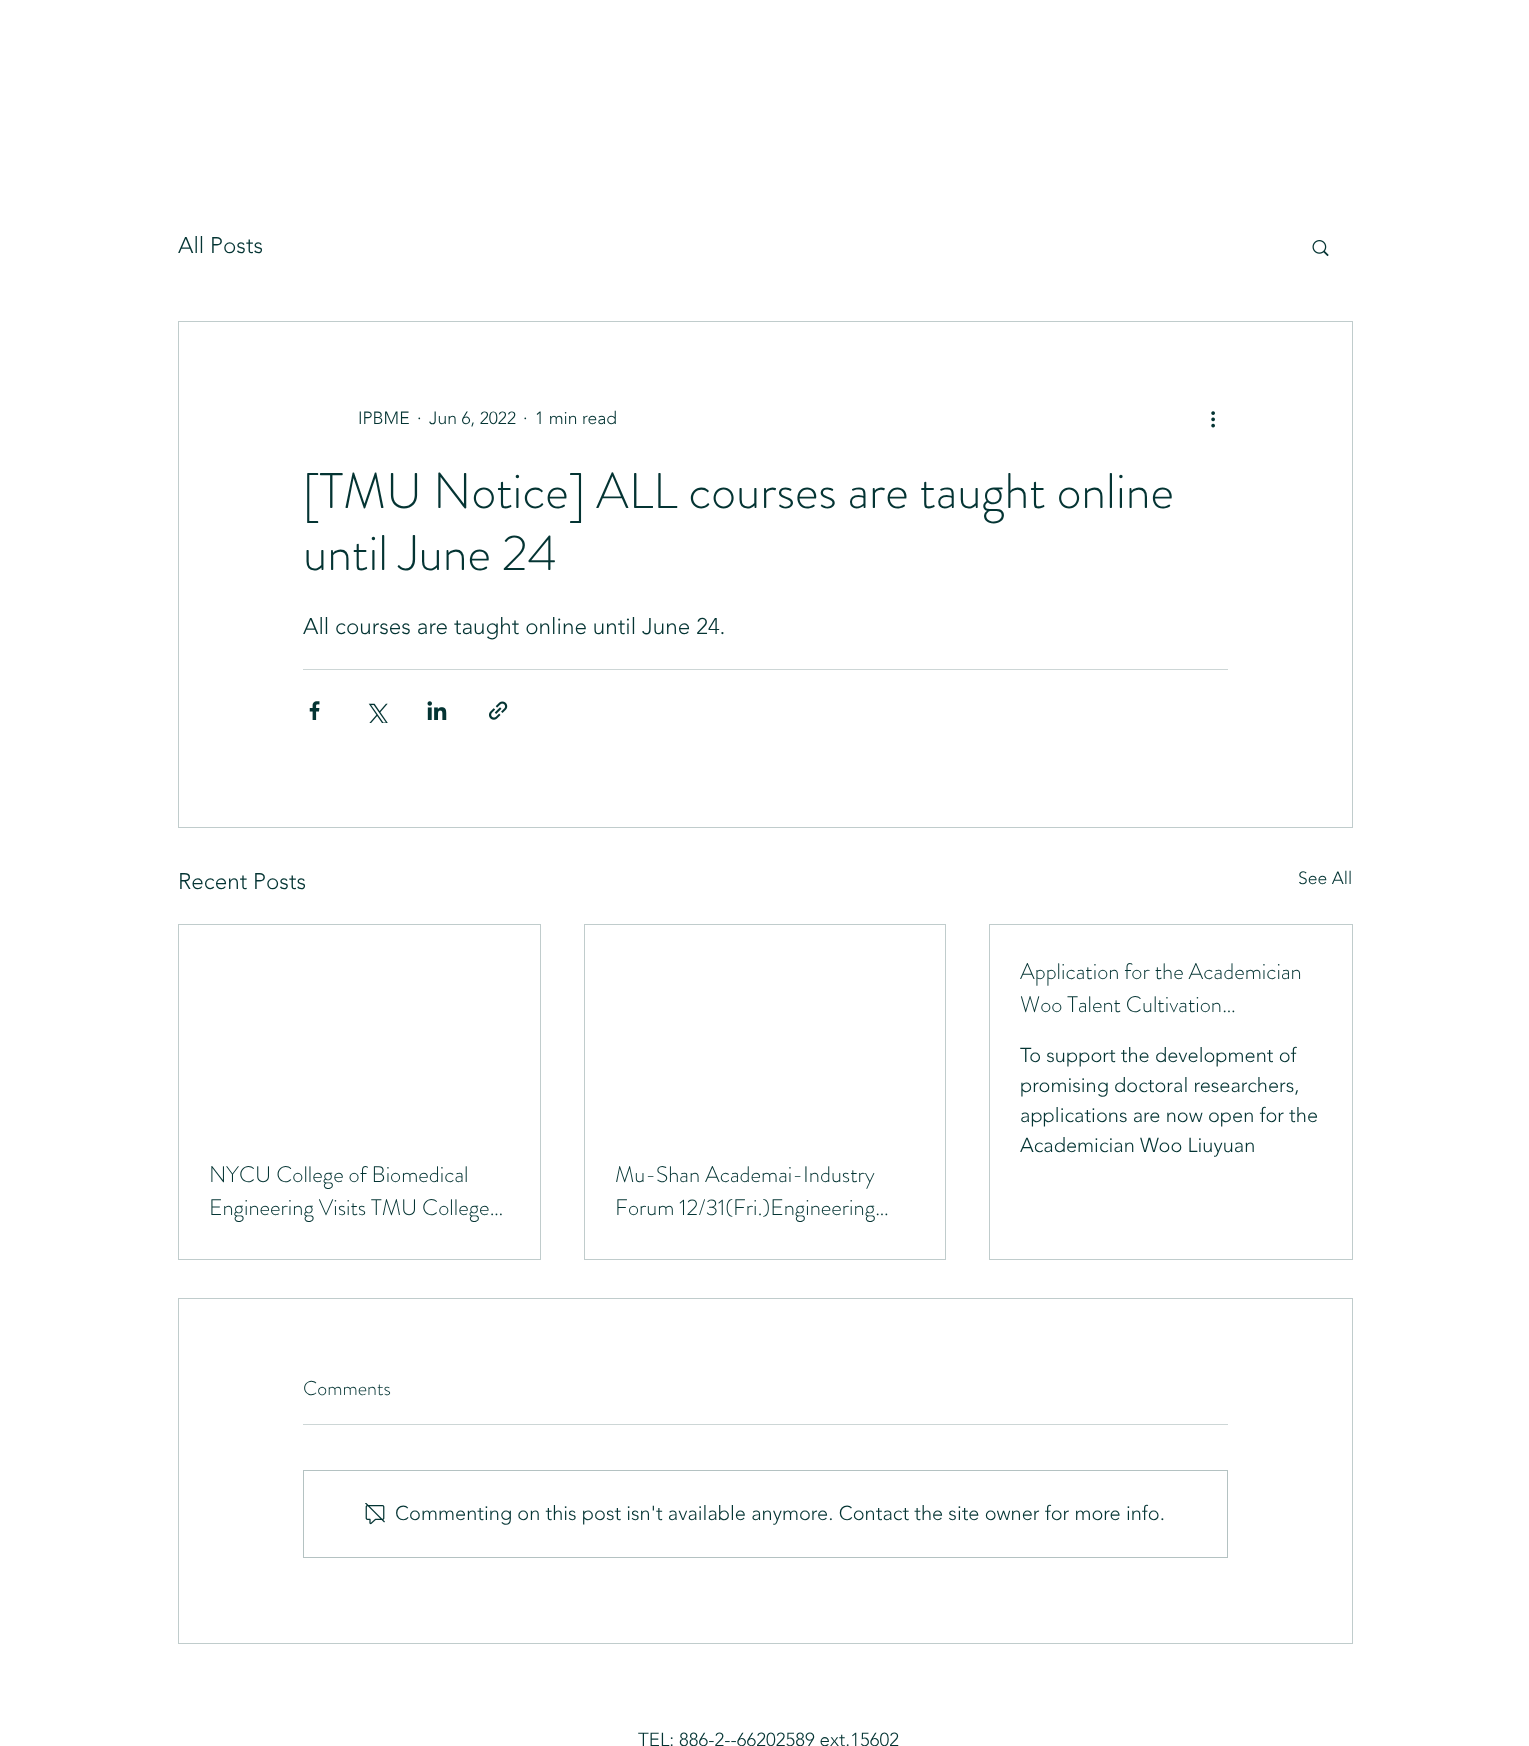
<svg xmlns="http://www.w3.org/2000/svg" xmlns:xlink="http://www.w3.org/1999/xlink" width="1529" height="1746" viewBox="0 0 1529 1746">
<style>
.cls-1{font:300 22.5px 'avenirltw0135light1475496';fill:#043433}
.cls-2{font:300 17.5px 'avenirltw0135light1475496';fill:#043433}
.cls-3{font:300 50px 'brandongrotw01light';fill:#043433}
.cls-4{font:300 22.5px 'brandongrotw01light';fill:#043433}
.cls-5{font:300 20px 'avenirltw0135light1475496';fill:#043433}
.cls-6{font:300 20px 'brandongrotw01light';fill:#043433}
.cls-7{font:300 18.75px 'avenirltw0135light1475496';fill:#043433}
</style>
<rect width="100%" height="100%" fill="#ffffff"/>
<image xlink:href="image0.png" x="1312" y="240" width="17" height="17"/>
<rect fill="none" stroke="#c0cccc" x="178.5" y="321.5" width="1174" height="506"/>
<image xlink:href="image1.png" x="1211" y="411" width="4" height="17"/>
<rect fill="#cdd6d6" x="303" y="669" width="925" height="1"/>
<image xlink:href="image2.png" x="309" y="701" width="11" height="19"/>
<image xlink:href="image3.png" x="368" y="703" width="20" height="20"/>
<image xlink:href="image4.png" x="427" y="701" width="20" height="19"/>
<image xlink:href="image5.png" x="489" y="701" width="19" height="19"/>
<rect fill="none" stroke="#c0cccc" x="989.5" y="924.5" width="363" height="335"/>
<rect fill="none" stroke="#c0cccc" x="178.5" y="924.5" width="362" height="335"/>
<rect fill="none" stroke="#c0cccc" x="584.5" y="924.5" width="361" height="335"/>
<rect fill="none" stroke="#c0cccc" x="178.5" y="1298.5" width="1174" height="345"/>
<rect fill="#cdd6d6" x="303" y="1424" width="925" height="1"/>
<rect fill="none" stroke="#b4c2c2" x="303.5" y="1470.5" width="924" height="87"/>
<image xlink:href="image6.png" x="365" y="1503" width="20" height="22"/>
<text class="cls-1" x="178" y="253">All Posts</text>
<text class="cls-2" x="358" y="424">IPBME</text>
<text class="cls-2" x="417" y="424">·</text>
<text class="cls-2" x="429" y="424">Jun 6, 2022</text>
<text class="cls-2" x="523" y="424">·</text>
<text class="cls-2" x="535" y="424">1 min read</text>
<text class="cls-3"><tspan x="303" y="508">[TMU Notice] ALL courses are taught online</tspan><tspan x="303" y="570">until June 24</tspan></text>
<text class="cls-1" x="303" y="634">All courses are taught online until June 24.</text>
<text class="cls-1" x="178" y="889">Recent Posts</text>
<text class="cls-2" x="1298" y="884">See All</text>
<text class="cls-4"><tspan x="1020" y="979">Application for the Academician</tspan><tspan x="1020" y="1012">Woo Talent Cultivation…</tspan></text>
<text class="cls-5"><tspan x="1020" y="1062">To support the development of</tspan><tspan x="1020" y="1092">promising doctoral researchers,</tspan><tspan x="1020" y="1122">applications are now open for the</tspan><tspan x="1020" y="1152">Academician Woo Liuyuan</tspan></text>
<text class="cls-4"><tspan x="209" y="1182">NYCU College of Biomedical</tspan><tspan x="209" y="1215">Engineering Visits TMU College…</tspan></text>
<text class="cls-4"><tspan x="615" y="1182">Mu-Shan Academai-Industry</tspan><tspan x="615" y="1215">Forum 12/31(Fri.)Engineering…</tspan></text>
<text class="cls-6" x="303" y="1395">Comments</text>
<text class="cls-5" x="395" y="1520">Commenting on this post isn't available anymore. Contact the site owner for more info.</text>
<text class="cls-7" x="638" y="1746">TEL: 886-2--66202589 ext.15602</text>
</svg>
